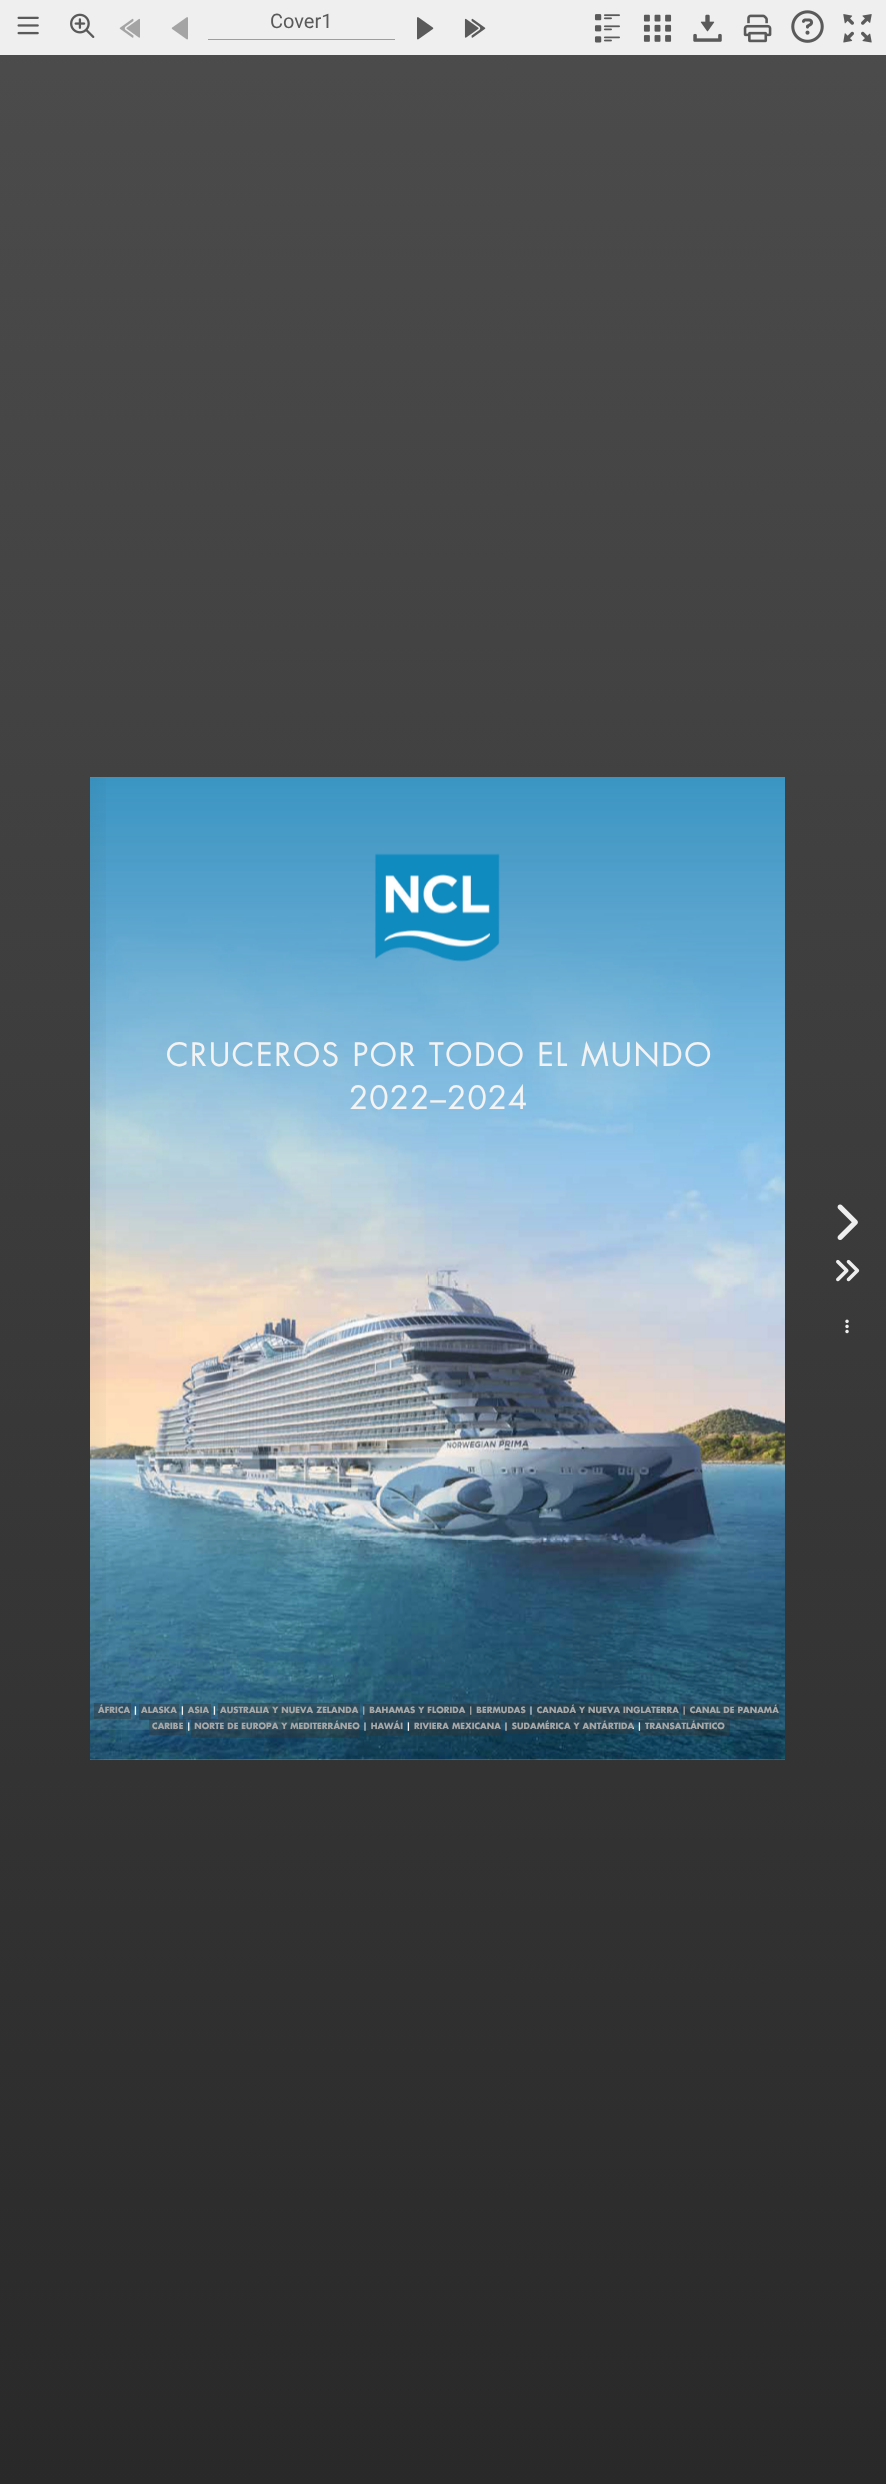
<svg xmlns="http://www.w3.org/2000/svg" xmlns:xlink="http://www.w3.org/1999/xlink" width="886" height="2484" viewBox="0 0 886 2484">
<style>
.cls-1{font:20px Roboto;fill:#5a5a5a}
.cls-2{font:31.4px 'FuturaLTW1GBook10';letter-spacing:1.6px;fill:#f3f3f3}
.cls-3{font:31.4px 'FuturaLTW1GBook10';letter-spacing:1px;fill:#f3f3f3}
.cls-4{font:bold 8.42px 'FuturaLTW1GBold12';letter-spacing:0.08px;fill:#f3f3f3}
</style>
<defs>
<linearGradient id="g1" gradientUnits="userSpaceOnUse" x1="443" y1="0" x2="443" y2="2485"><stop offset="0" stop-color="#4c4c4c"/><stop offset="1" stop-color="#292929"/></linearGradient>
<linearGradient id="g2" gradientUnits="userSpaceOnUse" x1="785" y1="1270" x2="90" y2="1270"><stop offset="0.95" stop-color="#000000" stop-opacity="0"/><stop offset="1" stop-color="#000000" stop-opacity="0.04"/></linearGradient>
</defs>
<rect width="100%" height="100%" fill="#ffffff"/>
<rect fill="url(#g1)" x="0" y="55" width="886" height="2429"/>
<rect fill="#efefef" x="0" y="0" width="886" height="55"/>
<image xlink:href="image0.png" x="17" y="16" width="22" height="19"/>
<image xlink:href="image1.png" x="70" y="13" width="25" height="25"/>
<image xlink:href="image2.png" x="119" y="18" width="21" height="20"/>
<image xlink:href="image3.png" x="171" y="17" width="17" height="23"/>
<rect fill="#9e9e9e" x="208" y="39" width="187" height="1"/>
<image xlink:href="image4.png" x="417" y="17" width="17" height="23"/>
<image xlink:href="image5.png" x="464" y="18" width="22" height="20"/>
<image xlink:href="image6.png" x="594" y="14" width="26" height="29"/>
<image xlink:href="image7.png" x="643" y="14" width="29" height="28"/>
<image xlink:href="image8.png" x="693" y="14" width="29" height="28"/>
<image xlink:href="image9.png" x="743" y="14" width="29" height="29"/>
<image xlink:href="image10.png" x="791" y="10" width="33" height="33"/>
<image xlink:href="image11.png" x="843" y="14" width="29" height="29"/>
<image xlink:href="image12.png" x="90" y="777" width="695" height="953"/>
<image xlink:href="image13.png" x="90" y="777" width="695" height="983"/>
<rect fill="url(#g2)" x="90" y="778" width="16" height="982"/>
<image xlink:href="image14.png" x="837" y="1204" width="21" height="36"/>
<image xlink:href="image15.png" x="836" y="1259" width="24" height="23"/>
<image xlink:href="image16.png" x="845" y="1319" width="4" height="15"/>
<text class="cls-1" x="270" y="28">Cover1</text>
<text class="cls-2" x="166" y="1066" word-spacing="0.5">CRUCEROS POR TODO EL MUNDO</text>
<text class="cls-3" x="349" y="1109">2022–2024</text>
<text class="cls-4" x="98" y="1713">ÁFRICA | ALASKA | ASIA | AUSTRALIA Y NUEVA ZELANDA | BAHAMAS Y FLORIDA | BERMUDAS | CANADÁ Y NUEVA INGLATERRA | CANAL DE PANAMÁ</text>
<text class="cls-4" x="152" y="1729">CARIBE | NORTE DE EUROPA Y MEDITERRÁNEO | HAWÁI | RIVIERA MEXICANA | SUDAMÉRICA Y ANTÁRTIDA | TRANSATLÁNTICO</text>
<rect fill="#353534" fill-opacity="0.4" x="94" y="1703" width="37" height="16"/>
<rect fill="#353534" fill-opacity="0.4" x="218" y="1703" width="142" height="16"/>
<rect fill="#353534" fill-opacity="0.4" x="363" y="1704" width="107" height="16"/>
<rect fill="#353534" fill-opacity="0.4" x="531" y="1704" width="148" height="15"/>
<rect fill="#353534" fill-opacity="0.4" x="681" y="1704" width="98" height="15"/>
<rect fill="#353534" fill-opacity="0.4" x="149" y="1719" width="37" height="16"/>
<rect fill="#353534" fill-opacity="0.4" x="139" y="1704" width="40" height="16"/>
<rect fill="#353534" fill-opacity="0.4" x="191" y="1719" width="169" height="19"/>
<rect fill="#353534" fill-opacity="0.4" x="183" y="1704" width="28" height="16"/>
<rect fill="#353534" fill-opacity="0.4" x="365" y="1720" width="39" height="16"/>
<rect fill="#353534" fill-opacity="0.4" x="409" y="1719" width="92" height="16"/>
<rect fill="#353534" fill-opacity="0.4" x="469" y="1704" width="60" height="16"/>
<rect fill="#353534" fill-opacity="0.4" x="506" y="1719" width="127" height="15"/>
<rect fill="#353534" fill-opacity="0.4" x="640" y="1720" width="90" height="15"/>
</svg>
